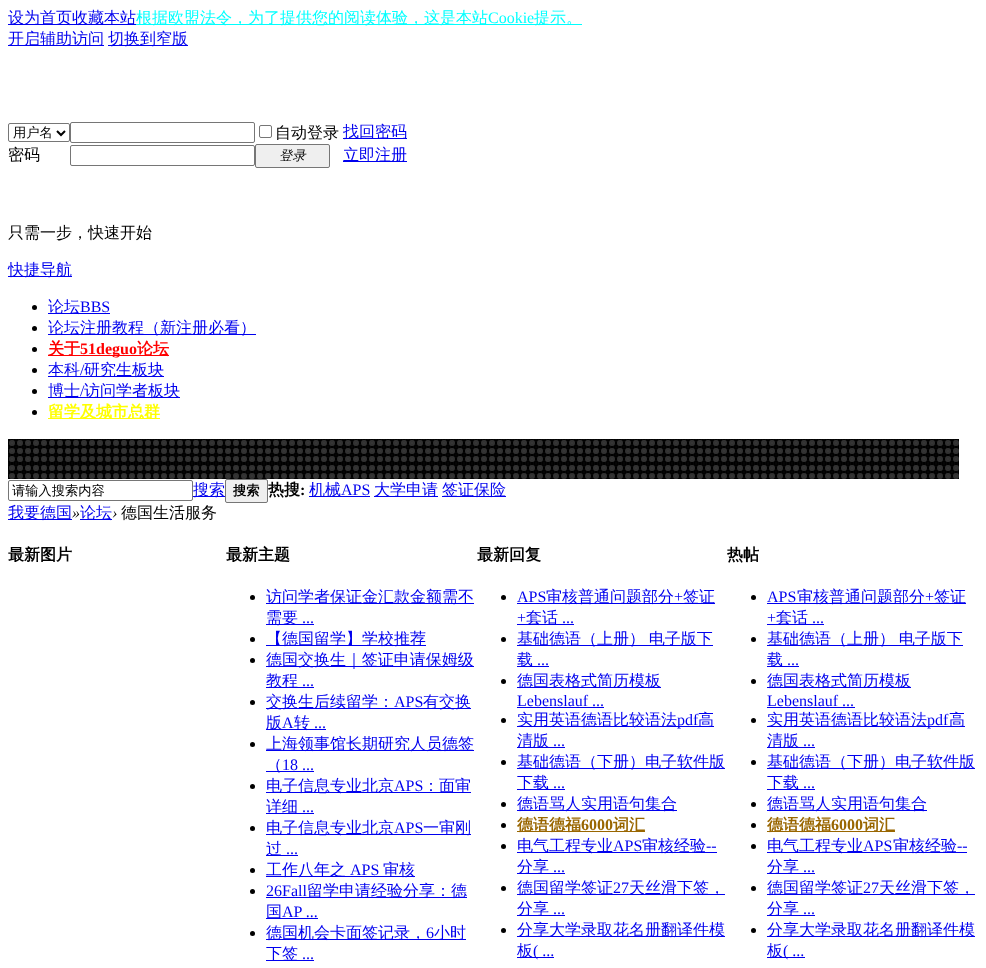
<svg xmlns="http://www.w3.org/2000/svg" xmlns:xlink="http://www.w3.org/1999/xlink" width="986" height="968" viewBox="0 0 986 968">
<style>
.cls-1{font:500 16px WenQuanYi Zen Hei;fill:#0000ee}
.cls-2{font:500 16px WenQuanYi Zen Hei;fill:#00ffff}
.cls-3{font:16px Liberation Serif;fill:#00ffff}
.cls-4{font:500 13.25px WenQuanYi Zen Hei;fill:#000000}
.cls-5{font:500 16px WenQuanYi Zen Hei;fill:#000000}
.cls-6{font:italic 500 13.25px WenQuanYi Zen Hei;fill:#000000}
.cls-7{font:16px Liberation Serif;fill:#0000ee}
.cls-8{font:bold 16px WenQuanYi Zen Hei;fill:#ff0000}
.cls-9{font:bold 16px Liberation Serif;fill:#ff0000}
.cls-10{font:bold 16px WenQuanYi Zen Hei;fill:#ffff00}
.cls-11{font:bold 13.25px WenQuanYi Zen Hei;fill:#000000}
.cls-12{font:bold 16px WenQuanYi Zen Hei;fill:#000000}
.cls-13{font:bold 16px Liberation Serif;fill:#000000}
.cls-14{font:italic 16px Liberation Serif;fill:#000000}
.cls-15{font:bold 16px WenQuanYi Zen Hei;fill:#996600}
.cls-16{font:bold 16px Liberation Serif;fill:#996600}
</style>
<rect width="100%" height="100%" fill="#ffffff"/>
<rect fill="#0000ee" x="8" y="24" width="128" height="1"/>
<rect fill="#00ffff" x="136" y="24" width="446" height="1"/>
<rect fill="#0000ee" x="8" y="45" width="96" height="1"/>
<rect fill="#0000ee" x="108" y="45" width="80" height="1"/>
<rect fill="none" stroke="#767676" x="8.5" y="123.5" width="61" height="18" rx="1.5"/>
<path fill="none" stroke="#000000" stroke-width="2" d="M57 131L61 135L65 131"/>
<rect fill="none" stroke="#767676" x="70.5" y="122.5" width="184" height="20" rx="1.5"/>
<rect fill="none" stroke="#767676" x="259.5" y="125.5" width="12" height="12" rx="1.5"/>
<rect fill="#0000ee" x="343" y="138" width="64" height="1"/>
<rect fill="none" stroke="#767676" x="70.5" y="145.5" width="184" height="20" rx="1.5"/>
<rect fill="#efefef" stroke="#767676" x="255.5" y="144.5" width="74" height="23" rx="1.5"/>
<rect fill="#0000ee" x="343" y="161" width="64" height="1"/>
<rect fill="#0000ee" x="8" y="276" width="64" height="1"/>
<circle fill="#000000" cx="34.5" cy="307.5" r="2.5"/>
<rect fill="#0000ee" x="48" y="313" width="62" height="1"/>
<circle fill="#000000" cx="34.5" cy="328.5" r="2.5"/>
<rect fill="#0000ee" x="48" y="334" width="208" height="1"/>
<circle fill="#000000" cx="34.5" cy="349.5" r="2.5"/>
<rect fill="#ff0000" x="48" y="355" width="121" height="1"/>
<circle fill="#000000" cx="34.5" cy="370.5" r="2.5"/>
<rect fill="#0000ee" x="48" y="376" width="116" height="1"/>
<circle fill="#000000" cx="34.5" cy="391.5" r="2.5"/>
<rect fill="#0000ee" x="48" y="397" width="132" height="1"/>
<circle fill="#000000" cx="34.5" cy="412.5" r="2.5"/>
<rect fill="#ffff00" x="48" y="418" width="112" height="1"/>
<image xlink:href="image0.png" x="8" y="439" width="951" height="40"/>
<rect fill="none" stroke="#767676" x="8.5" y="480.5" width="184" height="20" rx="1.5"/>
<rect fill="#0000ee" x="193" y="496" width="32" height="1"/>
<rect fill="#efefef" stroke="#767676" x="225.5" y="479.5" width="42" height="23" rx="1.5"/>
<rect fill="#0000ee" x="309" y="496" width="61" height="1"/>
<rect fill="#0000ee" x="374" y="496" width="64" height="1"/>
<rect fill="#0000ee" x="442" y="496" width="64" height="1"/>
<rect fill="#0000ee" x="8" y="519" width="64" height="1"/>
<rect fill="#0000ee" x="80" y="519" width="32" height="1"/>
<circle fill="#000000" cx="252.5" cy="597.5" r="2.5"/>
<rect fill="#0000ee" x="266" y="603" width="208" height="1"/>
<rect fill="#0000ee" x="266" y="624" width="48" height="1"/>
<circle fill="#000000" cx="252.5" cy="639.5" r="2.5"/>
<rect fill="#0000ee" x="266" y="645" width="160" height="1"/>
<circle fill="#000000" cx="252.5" cy="660.5" r="2.5"/>
<rect fill="#0000ee" x="266" y="666" width="208" height="1"/>
<rect fill="#0000ee" x="266" y="687" width="48" height="1"/>
<circle fill="#000000" cx="252.5" cy="702.5" r="2.5"/>
<rect fill="#0000ee" x="266" y="708" width="205" height="1"/>
<rect fill="#0000ee" x="266" y="729" width="60" height="1"/>
<circle fill="#000000" cx="252.5" cy="744.5" r="2.5"/>
<rect fill="#0000ee" x="266" y="750" width="208" height="1"/>
<rect fill="#0000ee" x="266" y="771" width="48" height="1"/>
<circle fill="#000000" cx="252.5" cy="786.5" r="2.5"/>
<rect fill="#0000ee" x="266" y="792" width="205" height="1"/>
<rect fill="#0000ee" x="266" y="813" width="48" height="1"/>
<circle fill="#000000" cx="252.5" cy="828.5" r="2.5"/>
<rect fill="#0000ee" x="266" y="834" width="205" height="1"/>
<rect fill="#0000ee" x="266" y="855" width="32" height="1"/>
<circle fill="#000000" cx="252.5" cy="870.5" r="2.5"/>
<rect fill="#0000ee" x="266" y="876" width="149" height="1"/>
<circle fill="#000000" cx="252.5" cy="891.5" r="2.5"/>
<rect fill="#0000ee" x="266" y="897" width="201" height="1"/>
<rect fill="#0000ee" x="266" y="918" width="52" height="1"/>
<circle fill="#000000" cx="252.5" cy="933.5" r="2.5"/>
<rect fill="#0000ee" x="266" y="939" width="200" height="1"/>
<rect fill="#0000ee" x="266" y="960" width="48" height="1"/>
<circle fill="#000000" cx="503.5" cy="597.5" r="2.5"/>
<rect fill="#0000ee" x="517" y="603" width="198" height="1"/>
<rect fill="#0000ee" x="517" y="624" width="57" height="1"/>
<circle fill="#000000" cx="503.5" cy="639.5" r="2.5"/>
<rect fill="#0000ee" x="517" y="645" width="196" height="1"/>
<rect fill="#0000ee" x="517" y="666" width="32" height="1"/>
<circle fill="#000000" cx="503.5" cy="681.5" r="2.5"/>
<rect fill="#0000ee" x="517" y="687" width="144" height="1"/>
<rect fill="#0000ee" x="517" y="707" width="87" height="1"/>
<circle fill="#000000" cx="503.5" cy="720.5" r="2.5"/>
<rect fill="#0000ee" x="517" y="726" width="197" height="1"/>
<rect fill="#0000ee" x="517" y="747" width="48" height="1"/>
<circle fill="#000000" cx="503.5" cy="762.5" r="2.5"/>
<rect fill="#0000ee" x="517" y="768" width="208" height="1"/>
<rect fill="#0000ee" x="517" y="789" width="48" height="1"/>
<circle fill="#000000" cx="503.5" cy="804.5" r="2.5"/>
<rect fill="#0000ee" x="517" y="810" width="160" height="1"/>
<circle fill="#000000" cx="503.5" cy="825.5" r="2.5"/>
<rect fill="#996600" x="517" y="831" width="128" height="1"/>
<circle fill="#000000" cx="503.5" cy="846.5" r="2.5"/>
<rect fill="#0000ee" x="517" y="852" width="200" height="1"/>
<rect fill="#0000ee" x="517" y="873" width="48" height="1"/>
<circle fill="#000000" cx="503.5" cy="888.5" r="2.5"/>
<rect fill="#0000ee" x="517" y="894" width="208" height="1"/>
<rect fill="#0000ee" x="517" y="915" width="48" height="1"/>
<circle fill="#000000" cx="503.5" cy="930.5" r="2.5"/>
<rect fill="#0000ee" x="517" y="936" width="208" height="1"/>
<rect fill="#0000ee" x="517" y="957" width="37" height="1"/>
<circle fill="#000000" cx="753.5" cy="597.5" r="2.5"/>
<rect fill="#0000ee" x="767" y="603" width="199" height="1"/>
<rect fill="#0000ee" x="767" y="624" width="57" height="1"/>
<circle fill="#000000" cx="753.5" cy="639.5" r="2.5"/>
<rect fill="#0000ee" x="767" y="645" width="196" height="1"/>
<rect fill="#0000ee" x="767" y="666" width="32" height="1"/>
<circle fill="#000000" cx="753.5" cy="681.5" r="2.5"/>
<rect fill="#0000ee" x="767" y="687" width="144" height="1"/>
<rect fill="#0000ee" x="767" y="707" width="88" height="1"/>
<circle fill="#000000" cx="753.5" cy="720.5" r="2.5"/>
<rect fill="#0000ee" x="767" y="726" width="198" height="1"/>
<rect fill="#0000ee" x="767" y="747" width="48" height="1"/>
<circle fill="#000000" cx="753.5" cy="762.5" r="2.5"/>
<rect fill="#0000ee" x="767" y="768" width="208" height="1"/>
<rect fill="#0000ee" x="767" y="789" width="48" height="1"/>
<circle fill="#000000" cx="753.5" cy="804.5" r="2.5"/>
<rect fill="#0000ee" x="767" y="810" width="160" height="1"/>
<circle fill="#000000" cx="753.5" cy="825.5" r="2.5"/>
<rect fill="#996600" x="767" y="831" width="128" height="1"/>
<circle fill="#000000" cx="753.5" cy="846.5" r="2.5"/>
<rect fill="#0000ee" x="767" y="852" width="200" height="1"/>
<rect fill="#0000ee" x="767" y="873" width="48" height="1"/>
<circle fill="#000000" cx="753.5" cy="888.5" r="2.5"/>
<rect fill="#0000ee" x="767" y="894" width="208" height="1"/>
<rect fill="#0000ee" x="767" y="915" width="48" height="1"/>
<circle fill="#000000" cx="753.5" cy="930.5" r="2.5"/>
<rect fill="#0000ee" x="767" y="936" width="208" height="1"/>
<rect fill="#0000ee" x="767" y="957" width="38" height="1"/>
<text class="cls-1" x="8" y="23">设为首页收藏本站</text>
<text class="cls-2" x="136" y="23">根据欧盟法令，为了提供您的阅读体验，这是本站</text>
<text class="cls-3" x="488" y="23">Cookie</text>
<text class="cls-2" x="534" y="23">提示。</text>
<text class="cls-1" x="8" y="44">开启辅助访问</text>
<text class="cls-1" x="108" y="44">切换到窄版</text>
<text class="cls-4" x="13" y="137">用户名</text>
<text class="cls-5" x="275" y="138">自动登录</text>
<text class="cls-1" x="343" y="137">找回密码</text>
<text class="cls-5" x="8" y="160">密码</text>
<text class="cls-6" x="279" y="160">登录</text>
<text class="cls-1" x="343" y="160">立即注册</text>
<text class="cls-5" x="8" y="238">只需一步，快速开始</text>
<text class="cls-1" x="8" y="275">快捷导航</text>
<text class="cls-1" x="48" y="312">论坛</text>
<text class="cls-7" x="80" y="312">BBS</text>
<text class="cls-1" x="48" y="333">论坛注册教程（新注册必看）</text>
<text class="cls-8" x="48" y="354">关于</text>
<text class="cls-9" x="80" y="354">51deguo</text>
<text class="cls-8" x="137" y="354">论坛</text>
<text class="cls-1" x="48" y="375">本科</text>
<text class="cls-7" x="80" y="375">/</text>
<text class="cls-1" x="84" y="375">研究生板块</text>
<text class="cls-1" x="48" y="396">博士</text>
<text class="cls-7" x="80" y="396">/</text>
<text class="cls-1" x="84" y="396">访问学者板块</text>
<text class="cls-10" x="48" y="417">留学及城市总群</text>
<text class="cls-4" x="12" y="495">请输入搜索内容</text>
<text class="cls-1" x="193" y="495">搜索</text>
<text class="cls-11" x="233" y="495">搜索</text>
<text class="cls-12" x="268" y="495">热搜</text>
<text class="cls-13" x="300" y="495">:</text>
<text class="cls-1" x="309" y="495">机械</text>
<text class="cls-7" x="341" y="495">APS</text>
<text class="cls-1" x="374" y="495">大学申请</text>
<text class="cls-1" x="442" y="495">签证保险</text>
<text class="cls-1" x="8" y="518">我要德国</text>
<text class="cls-14" x="72" y="518">»</text>
<text class="cls-1" x="80" y="518">论坛</text>
<text class="cls-14" x="112" y="518">›</text>
<text class="cls-5" x="121" y="518">德国生活服务</text>
<text class="cls-12" x="8" y="560">最新图片</text>
<text class="cls-12" x="226" y="560">最新主题</text>
<text class="cls-1"><tspan x="266" y="602">访问学者保证金汇款金额需不</tspan><tspan x="266" y="623">需要</tspan></text>
<text class="cls-7" x="302" y="623">...</text>
<text class="cls-1"><tspan x="266" y="644">【德国留学】学校推荐</tspan><tspan x="266" y="665">德国交换生｜签证申请保姆级</tspan><tspan x="266" y="686">教程</tspan></text>
<text class="cls-7" x="302" y="686">...</text>
<text class="cls-1" x="266" y="707">交换生后续留学：</text>
<text class="cls-7" x="394" y="707">APS</text>
<text class="cls-1" x="423" y="707">有交换</text>
<text class="cls-1" x="266" y="728">版</text>
<text class="cls-7" x="282" y="728">A</text>
<text class="cls-1" x="294" y="728">转</text>
<text class="cls-7" x="314" y="728">...</text>
<text class="cls-1"><tspan x="266" y="749">上海领事馆长期研究人员德签</tspan><tspan x="266" y="770">（</tspan></text>
<text class="cls-7" x="282" y="770">18 ...</text>
<text class="cls-1" x="266" y="791">电子信息专业北京</text>
<text class="cls-7" x="394" y="791">APS</text>
<text class="cls-1" x="423" y="791">：面审</text>
<text class="cls-1" x="266" y="812">详细</text>
<text class="cls-7" x="302" y="812">...</text>
<text class="cls-1" x="266" y="833">电子信息专业北京</text>
<text class="cls-7" x="394" y="833">APS</text>
<text class="cls-1" x="423" y="833">一审刚</text>
<text class="cls-1" x="266" y="854">过</text>
<text class="cls-7" x="286" y="854">...</text>
<text class="cls-1" x="266" y="875">工作八年之</text>
<text class="cls-7" x="350" y="875">APS</text>
<text class="cls-1" x="383" y="875">审核</text>
<text class="cls-7" x="266" y="896">26Fall</text>
<text class="cls-1" x="307" y="896">留学申请经验分享：德</text>
<text class="cls-1" x="266" y="917">国</text>
<text class="cls-7" x="282" y="917">AP ...</text>
<text class="cls-1" x="266" y="938">德国机会卡面签记录，</text>
<text class="cls-7" x="426" y="938">6</text>
<text class="cls-1" x="434" y="938">小时</text>
<text class="cls-1" x="266" y="959">下签</text>
<text class="cls-7" x="302" y="959">...</text>
<text class="cls-12" x="477" y="560">最新回复</text>
<text class="cls-7" x="517" y="602">APS</text>
<text class="cls-1" x="546" y="602">审核普通问题部分</text>
<text class="cls-7" x="674" y="602">+</text>
<text class="cls-1" x="683" y="602">签证</text>
<text class="cls-7" x="517" y="623">+</text>
<text class="cls-1" x="526" y="623">套话</text>
<text class="cls-7" x="562" y="623">...</text>
<text class="cls-1"><tspan x="517" y="644" word-spacing="-1">基础德语（上册） 电子版下</tspan><tspan x="517" y="665">载</tspan></text>
<text class="cls-7" x="537" y="665">...</text>
<text class="cls-1" x="517" y="686">德国表格式简历模板</text>
<text class="cls-7" x="517" y="706">Lebenslauf ...</text>
<text class="cls-1" x="517" y="725">实用英语德语比较语法</text>
<text class="cls-7" x="677" y="725">pdf</text>
<text class="cls-1" x="698" y="725">高</text>
<text class="cls-1" x="517" y="746">清版</text>
<text class="cls-7" x="553" y="746">...</text>
<text class="cls-1"><tspan x="517" y="767">基础德语（下册）电子软件版</tspan><tspan x="517" y="788">下载</tspan></text>
<text class="cls-7" x="553" y="788">...</text>
<text class="cls-1" x="517" y="809">德语骂人实用语句集合</text>
<text class="cls-15" x="517" y="830">德语德福</text>
<text class="cls-16" x="581" y="830">6000</text>
<text class="cls-15" x="613" y="830">词汇</text>
<text class="cls-1" x="517" y="851">电气工程专业</text>
<text class="cls-7" x="613" y="851">APS</text>
<text class="cls-1" x="642" y="851">审核经验</text>
<text class="cls-7" x="706" y="851">--</text>
<text class="cls-1" x="517" y="872">分享</text>
<text class="cls-7" x="553" y="872">...</text>
<text class="cls-1" x="517" y="893">德国留学签证</text>
<text class="cls-7" x="613" y="893">27</text>
<text class="cls-1" x="629" y="893">天丝滑下签，</text>
<text class="cls-1" x="517" y="914">分享</text>
<text class="cls-7" x="553" y="914">...</text>
<text class="cls-1"><tspan x="517" y="935">分享大学录取花名册翻译件模</tspan><tspan x="517" y="956">板</tspan></text>
<text class="cls-7" x="533" y="956">( ...</text>
<text class="cls-12" x="727" y="560">热帖</text>
<text class="cls-7" x="767" y="602">APS</text>
<text class="cls-1" x="797" y="602">审核普通问题部分</text>
<text class="cls-7" x="925" y="602">+</text>
<text class="cls-1" x="934" y="602">签证</text>
<text class="cls-7" x="767" y="623">+</text>
<text class="cls-1" x="776" y="623">套话</text>
<text class="cls-7" x="812" y="623">...</text>
<text class="cls-1"><tspan x="767" y="644" word-spacing="-1">基础德语（上册） 电子版下</tspan><tspan x="767" y="665">载</tspan></text>
<text class="cls-7" x="787" y="665">...</text>
<text class="cls-1" x="767" y="686">德国表格式简历模板</text>
<text class="cls-7" x="767" y="706">Lebenslauf ...</text>
<text class="cls-1" x="767" y="725">实用英语德语比较语法</text>
<text class="cls-7" x="927" y="725">pdf</text>
<text class="cls-1" x="949" y="725">高</text>
<text class="cls-1" x="767" y="746">清版</text>
<text class="cls-7" x="803" y="746">...</text>
<text class="cls-1"><tspan x="767" y="767">基础德语（下册）电子软件版</tspan><tspan x="767" y="788">下载</tspan></text>
<text class="cls-7" x="803" y="788">...</text>
<text class="cls-1" x="767" y="809">德语骂人实用语句集合</text>
<text class="cls-15" x="767" y="830">德语德福</text>
<text class="cls-16" x="831" y="830">6000</text>
<text class="cls-15" x="863" y="830">词汇</text>
<text class="cls-1" x="767" y="851">电气工程专业</text>
<text class="cls-7" x="863" y="851">APS</text>
<text class="cls-1" x="893" y="851">审核经验</text>
<text class="cls-7" x="957" y="851">--</text>
<text class="cls-1" x="767" y="872">分享</text>
<text class="cls-7" x="803" y="872">...</text>
<text class="cls-1" x="767" y="893">德国留学签证</text>
<text class="cls-7" x="863" y="893">27</text>
<text class="cls-1" x="879" y="893">天丝滑下签，</text>
<text class="cls-1" x="767" y="914">分享</text>
<text class="cls-7" x="803" y="914">...</text>
<text class="cls-1"><tspan x="767" y="935">分享大学录取花名册翻译件模</tspan><tspan x="767" y="956">板</tspan></text>
<text class="cls-7" x="783" y="956">( ...</text>
</svg>
